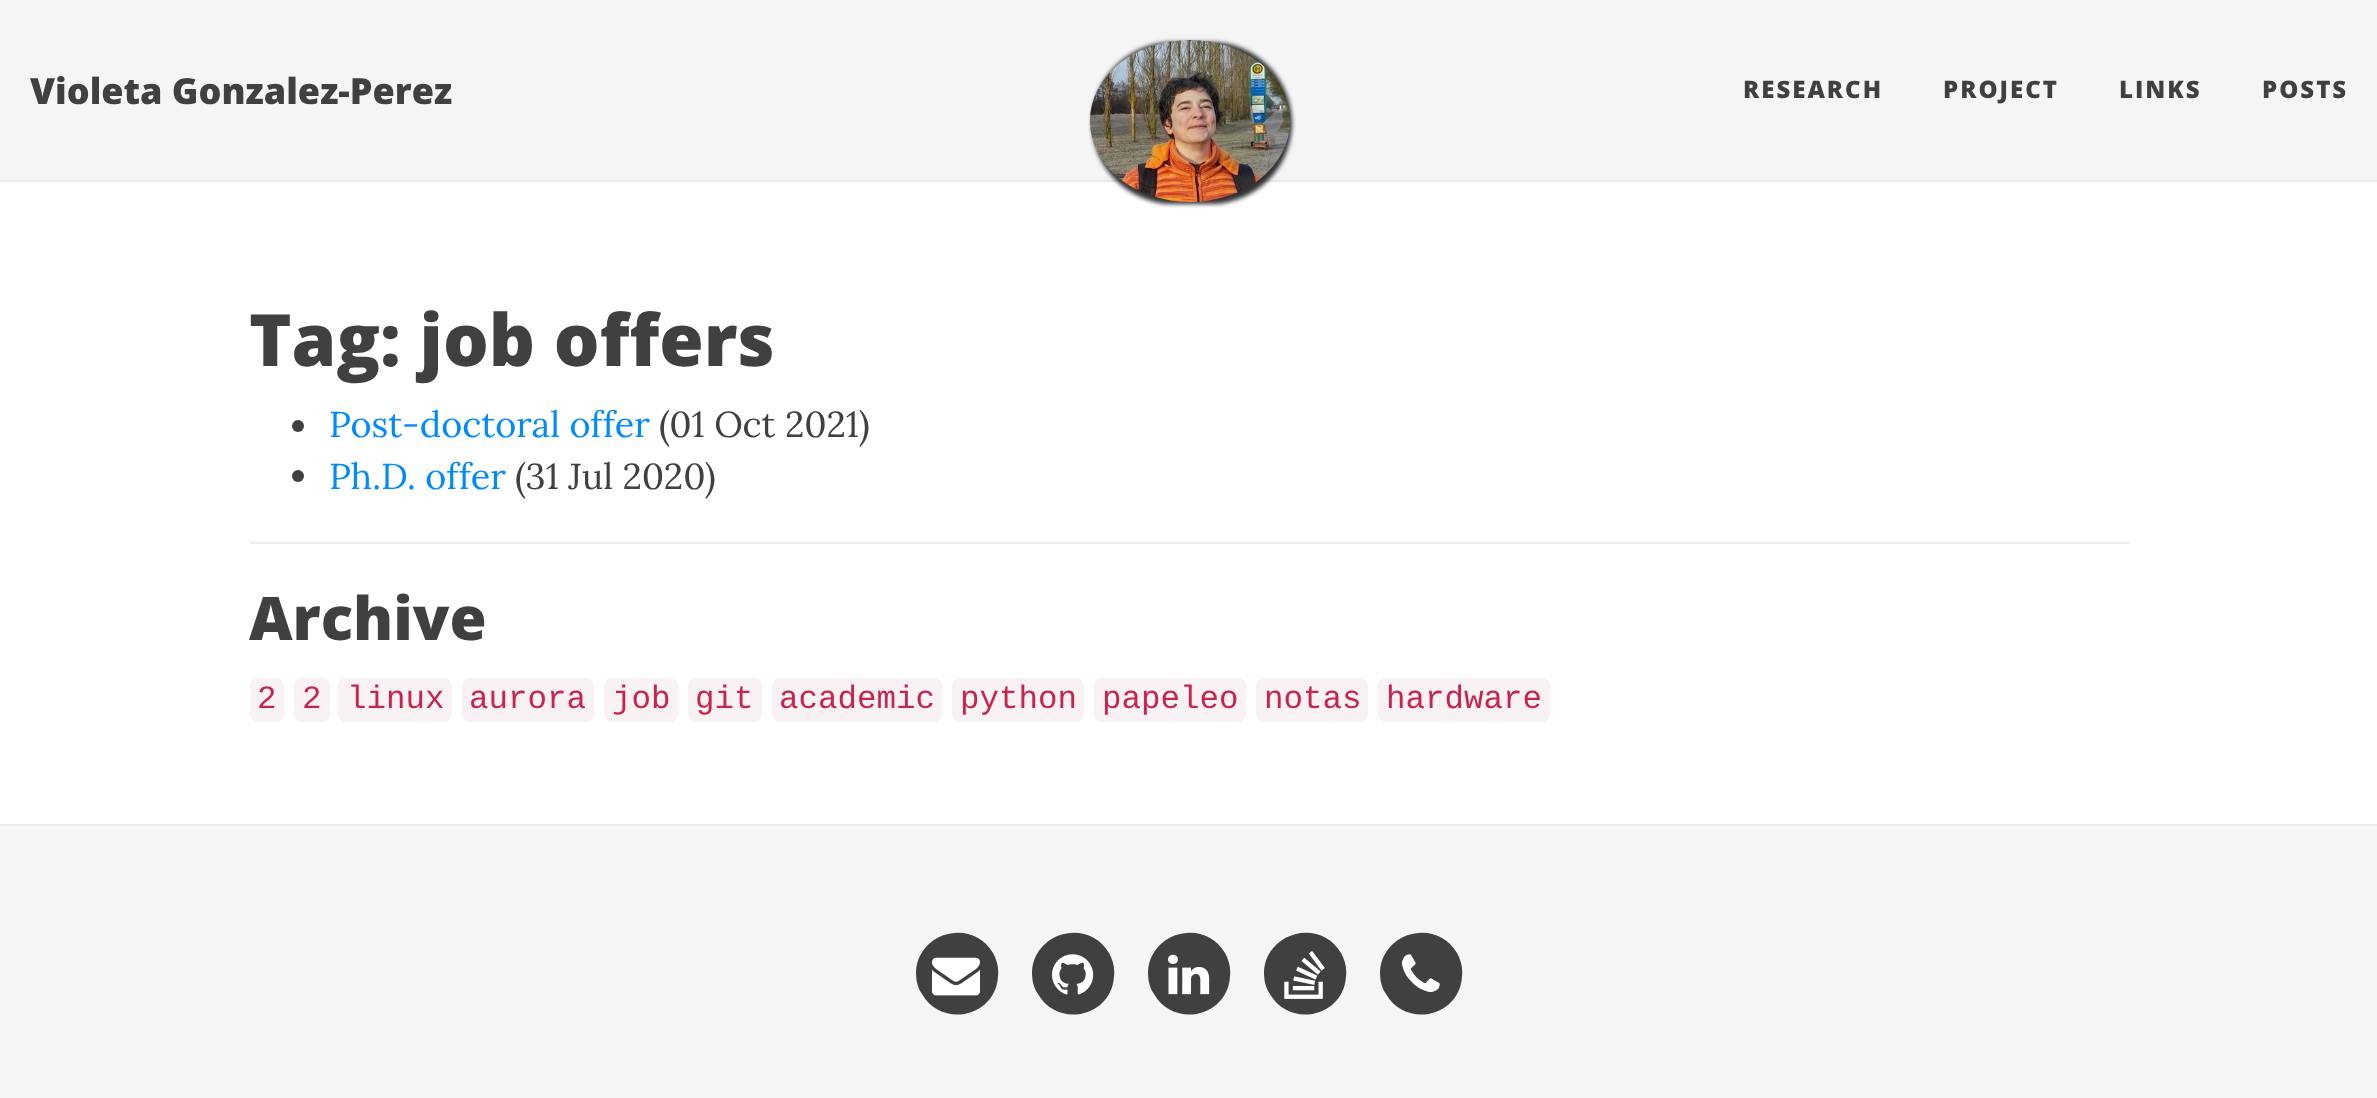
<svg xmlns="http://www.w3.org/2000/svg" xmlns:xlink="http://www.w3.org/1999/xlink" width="2377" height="1098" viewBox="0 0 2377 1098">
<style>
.cls-1{font:800 36px Open Sans;fill:#404040}
.cls-2{font:800 24px Open Sans;letter-spacing:2px;fill:#404040}
.cls-3{font:800 72px Open Sans;fill:#404040}
.cls-4{font:36px Lora;fill:#008aff}
.cls-5{font:36px Lora;fill:#404040}
.cls-6{font:800 60px Open Sans;fill:#404040}
.cls-7{font:32.5px Liberation Mono;fill:#c7254e}
</style>
<rect width="100%" height="100%" fill="#ffffff"/>
<rect fill="#f5f5f5" x="0" y="0" width="2377" height="180"/>
<rect fill="#eaeaea" x="0" y="180" width="2377" height="2"/>
<rect fill="#000000" fill-opacity="0.8" filter="blur(2px)" x="1092" y="42" width="200" height="162" rx="81"/>
<image xlink:href="image0.png" x="1090" y="40" width="200" height="162"/>
<circle fill="#404040" cx="298" cy="426" r="6"/>
<circle fill="#404040" cx="298" cy="476" r="6"/>
<rect fill="#eeeeee" x="250" y="542" width="1880" height="2"/>
<rect fill="#f9f2f4" x="250" y="678" width="34" height="44" rx="8"/>
<rect fill="#f9f2f4" x="294" y="678" width="36" height="44" rx="8"/>
<rect fill="#f9f2f4" x="338" y="678" width="114" height="44" rx="8"/>
<rect fill="#f9f2f4" x="462" y="678" width="132" height="44" rx="8"/>
<rect fill="#f9f2f4" x="604" y="678" width="74" height="44" rx="8"/>
<rect fill="#f9f2f4" x="688" y="678" width="74" height="44" rx="8"/>
<rect fill="#f9f2f4" x="772" y="678" width="170" height="44" rx="8"/>
<rect fill="#f9f2f4" x="952" y="678" width="132" height="44" rx="8"/>
<rect fill="#f9f2f4" x="1094" y="678" width="152" height="44" rx="8"/>
<rect fill="#f9f2f4" x="1256" y="678" width="112" height="44" rx="8"/>
<rect fill="#f9f2f4" x="1378" y="678" width="172" height="44" rx="8"/>
<rect fill="#f5f5f5" x="0" y="826" width="2377" height="272"/>
<rect fill="#eaeaea" x="0" y="824" width="2377" height="2"/>
<path fill="#404040" d="M993 953C997 960 999 968 998 976C996 1017 942 1029 922 994C917 987 916 979 916 971C919 931 973 918 993 953Z"/>
<image xlink:href="image1.png" x="932" y="957" width="48" height="39"/>
<path fill="#404040" d="M1109 953C1113 960 1115 968 1114 976C1112 1017 1058 1029 1038 994C1033 987 1032 979 1032 971C1035 931 1089 918 1109 953Z"/>
<image xlink:href="image2.png" x="1052" y="954" width="42" height="41"/>
<path fill="#404040" d="M1225 953C1229 960 1231 968 1230 976C1228 1017 1174 1029 1154 994C1149 987 1148 979 1148 971C1151 931 1205 918 1225 953Z"/>
<image xlink:href="image3.png" x="1168" y="954" width="42" height="41"/>
<path fill="#404040" d="M1341 953C1345 960 1347 968 1346 976C1344 1017 1290 1029 1270 994C1265 987 1264 979 1264 971C1267 931 1321 918 1341 953Z"/>
<image xlink:href="image4.png" x="1284" y="951" width="41" height="48"/>
<path fill="#404040" d="M1457 953C1461 960 1463 968 1462 976C1460 1017 1406 1029 1386 994C1381 987 1380 979 1380 971C1383 931 1437 918 1457 953Z"/>
<image xlink:href="image5.png" x="1402" y="954" width="38" height="38"/>
<text class="cls-1" x="30" y="104">Violeta Gonzalez-Perez</text>
<text class="cls-2" x="1743" y="98">RESEARCH</text>
<text class="cls-2" x="1943" y="98">PROJECT</text>
<text class="cls-2" x="2119" y="98">LINKS</text>
<text class="cls-2" x="2262" y="98">POSTS</text>
<text class="cls-3" x="249" y="366">Tag: job offers</text>
<text class="cls-4" x="329" y="437">Post-doctoral offer</text>
<text class="cls-5" x="659" y="437">(01 Oct 2021)</text>
<text class="cls-4" x="329" y="489">Ph.D. offer</text>
<text class="cls-5" x="515" y="489">(31 Jul 2020)</text>
<text class="cls-6" x="249" y="640">Archive</text>
<text class="cls-7" x="257" y="708">2</text>
<text class="cls-7" x="302" y="708">2</text>
<text class="cls-7" x="347" y="708">linux</text>
<text class="cls-7" x="469" y="708">aurora</text>
<text class="cls-7" x="612" y="708">job</text>
<text class="cls-7" x="695" y="708">git</text>
<text class="cls-7" x="779" y="708">academic</text>
<text class="cls-7" x="960" y="708">python</text>
<text class="cls-7" x="1102" y="708">papeleo</text>
<text class="cls-7" x="1264" y="708">notas</text>
<text class="cls-7" x="1386" y="708">hardware</text>
</svg>
